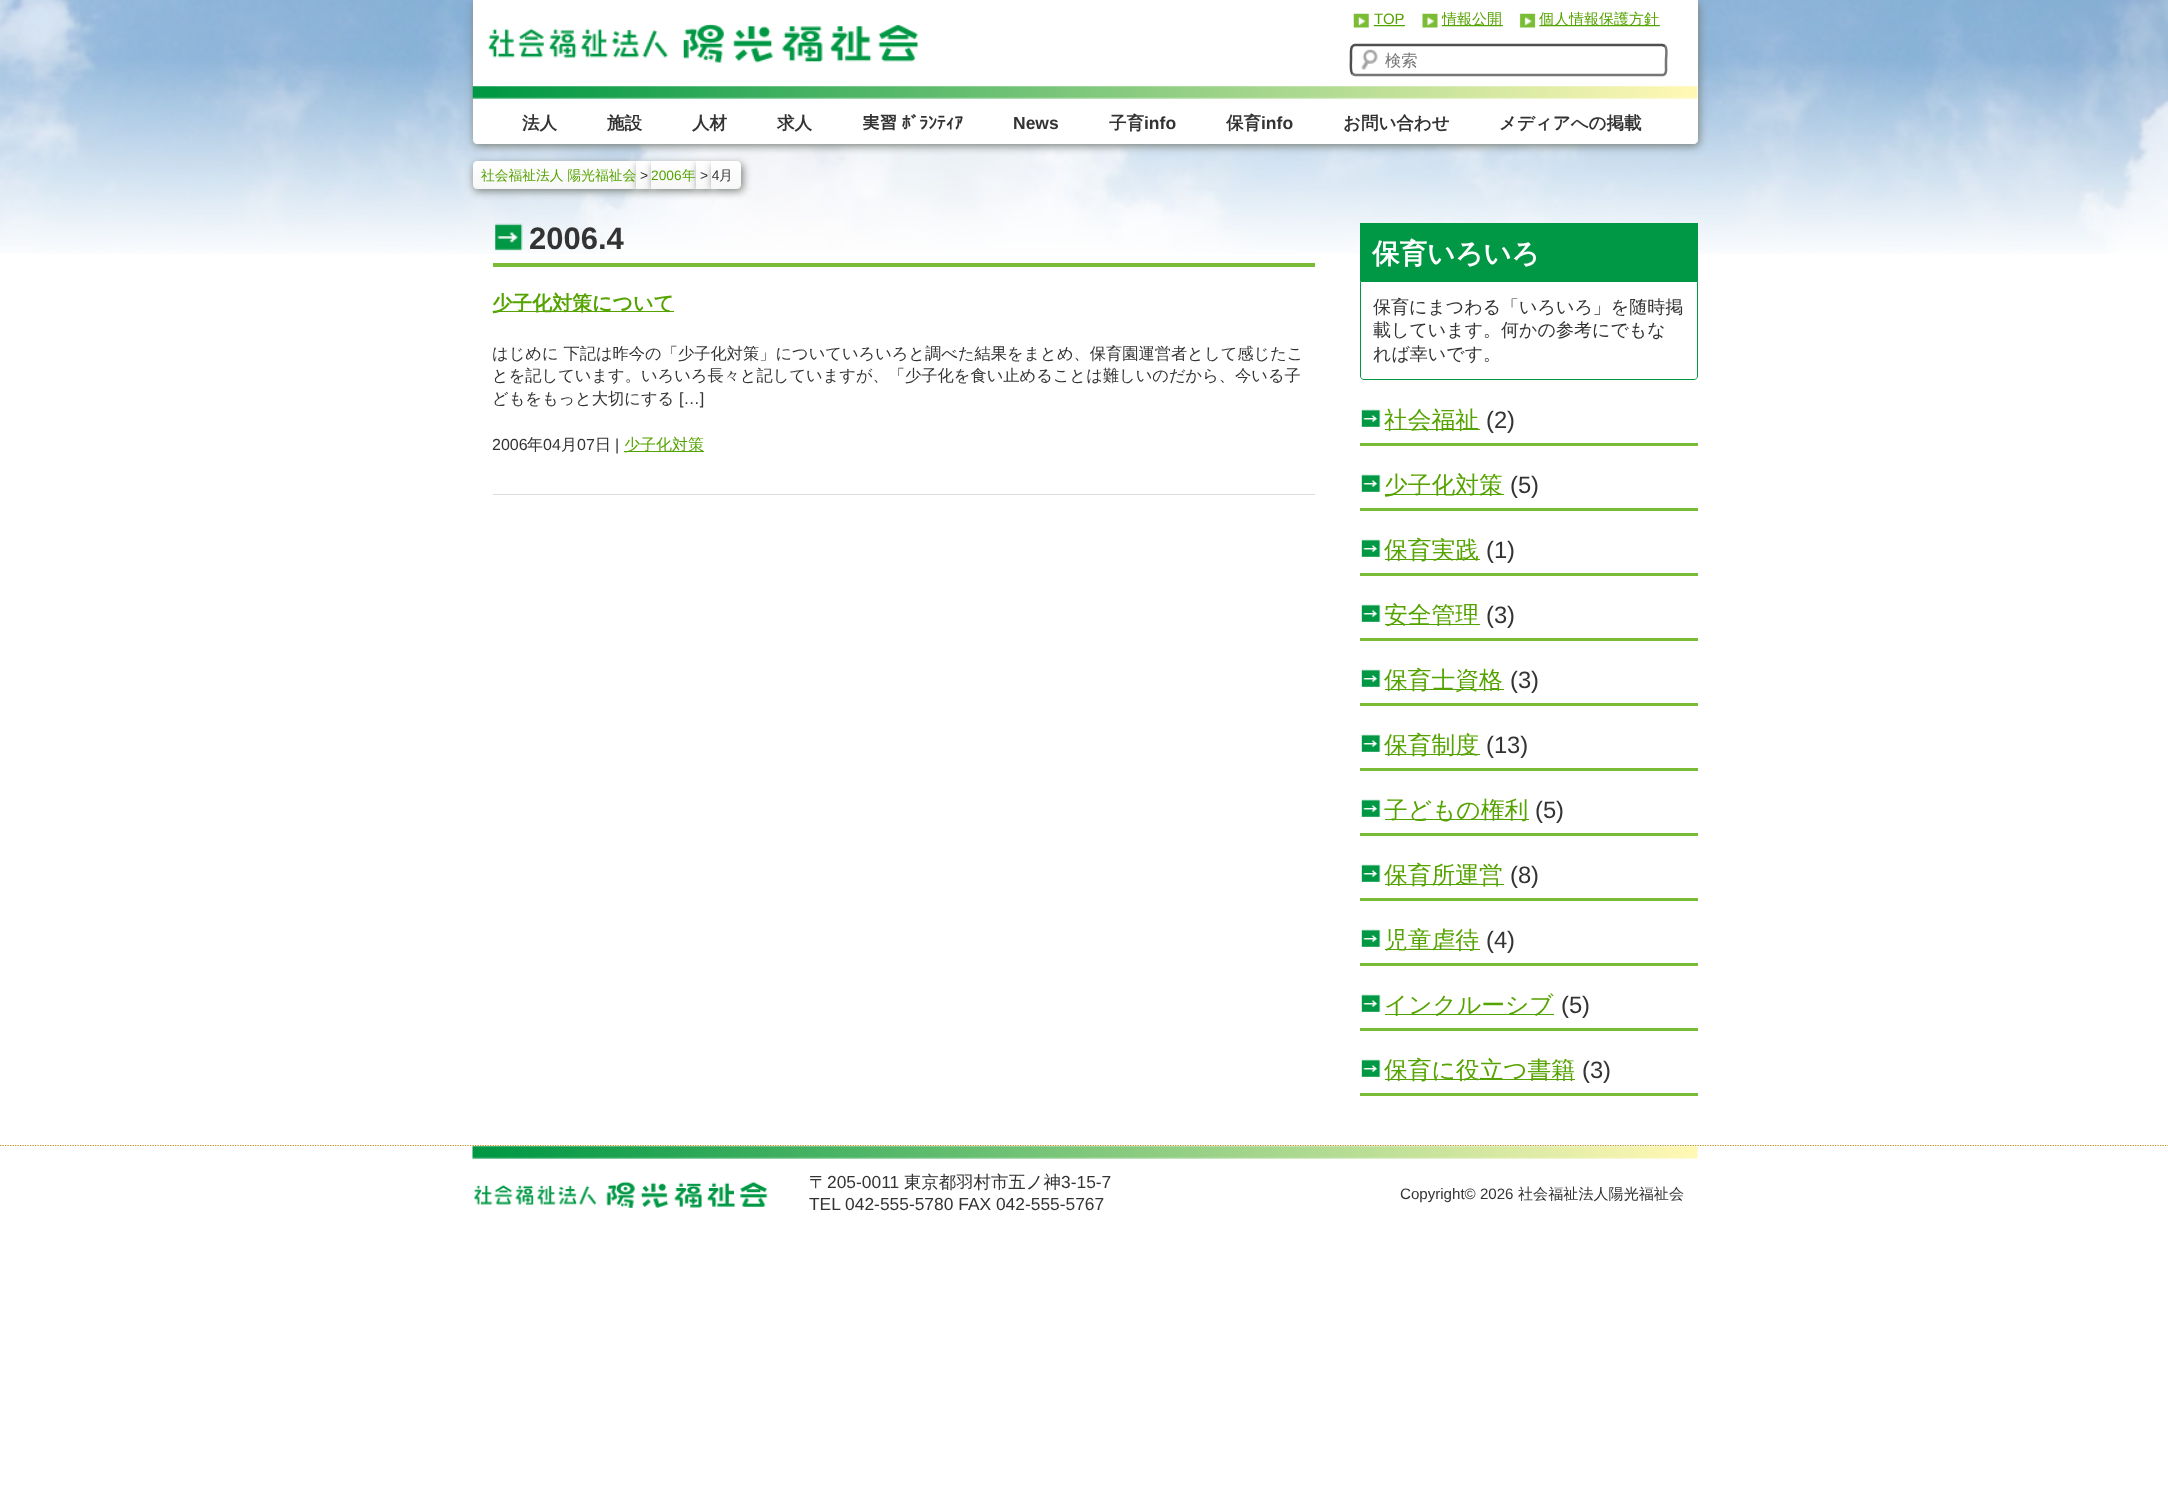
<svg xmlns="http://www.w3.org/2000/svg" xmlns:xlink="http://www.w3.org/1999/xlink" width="2168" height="1506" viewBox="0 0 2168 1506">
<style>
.cls-1{font:500 15px WenQuanYi Zen Hei;fill:#55a301}
.cls-2{font:15px Liberation Sans;fill:#55a301}
.cls-3{font:500 16.25px WenQuanYi Zen Hei;fill:#757575}
.cls-4{font:bold 17.5px WenQuanYi Zen Hei;fill:#333333}
.cls-5{font:bold 17.5px IPAPGothic;fill:#333333}
.cls-6{font:bold 17.5px Liberation Sans;fill:#333333}
.cls-7{font:500 13.75px WenQuanYi Zen Hei;fill:#55a301}
.cls-8{font:13.75px Liberation Sans;fill:#333333}
.cls-9{font:13.75px Liberation Sans;fill:#55a301}
.cls-10{font:500 13.75px WenQuanYi Zen Hei;fill:#333333}
.cls-11{font:bold 31px Liberation Sans;fill:#333333}
.cls-12{font:bold 20px WenQuanYi Zen Hei;fill:#55a301}
.cls-13{font:500 16.25px WenQuanYi Zen Hei;fill:#333333}
.cls-14{font:16.25px Liberation Sans;fill:#333333}
.cls-15{font:16px Liberation Sans;fill:#333333}
.cls-16{font:500 16px WenQuanYi Zen Hei;fill:#333333}
.cls-17{font:500 16px WenQuanYi Zen Hei;fill:#55a301}
.cls-18{font:bold 27.5px WenQuanYi Zen Hei;fill:#ffffff}
.cls-19{font:500 18px WenQuanYi Zen Hei;fill:#333333}
.cls-20{font:500 23.75px WenQuanYi Zen Hei;fill:#55a301}
.cls-21{font:23.75px Liberation Sans;fill:#333333}
.cls-22{font:500 17.4px WenQuanYi Zen Hei;fill:#333333}
.cls-23{font:17.4px Liberation Sans;fill:#333333}
.cls-24{font:15.1px Liberation Sans;fill:#333333}
.cls-25{font:500 15.1px WenQuanYi Zen Hei;fill:#333333}
</style>
<defs>
<linearGradient id="g1" gradientUnits="userSpaceOnUse" x1="554" y1="161" x2="554" y2="189"><stop offset="0" stop-color="#ffffff"/><stop offset="0.5" stop-color="#fbfbfb"/><stop offset="0.95" stop-color="#f8f8f8"/><stop offset="1" stop-color="#f5f5f5"/></linearGradient>
<linearGradient id="g2" gradientUnits="userSpaceOnUse" x1="644" y1="161" x2="644" y2="189"><stop offset="0" stop-color="#ffffff"/><stop offset="0.5" stop-color="#fbfbfb"/><stop offset="0.95" stop-color="#f8f8f8"/><stop offset="1" stop-color="#f5f5f5"/></linearGradient>
<linearGradient id="g3" gradientUnits="userSpaceOnUse" x1="674" y1="161" x2="674" y2="189"><stop offset="0" stop-color="#ffffff"/><stop offset="0.5" stop-color="#fbfbfb"/><stop offset="0.95" stop-color="#f8f8f8"/><stop offset="1" stop-color="#f5f5f5"/></linearGradient>
<linearGradient id="g4" gradientUnits="userSpaceOnUse" x1="704" y1="161" x2="704" y2="189"><stop offset="0" stop-color="#ffffff"/><stop offset="0.5" stop-color="#fbfbfb"/><stop offset="0.95" stop-color="#f8f8f8"/><stop offset="1" stop-color="#f5f5f5"/></linearGradient>
<linearGradient id="g5" gradientUnits="userSpaceOnUse" x1="726" y1="161" x2="726" y2="189"><stop offset="0" stop-color="#ffffff"/><stop offset="0.5" stop-color="#fbfbfb"/><stop offset="0.95" stop-color="#f8f8f8"/><stop offset="1" stop-color="#f5f5f5"/></linearGradient>
</defs>
<rect width="100%" height="100%" fill="#ffffff"/>
<image xlink:href="image0.png" x="0" y="0" width="2168" height="254"/>
<rect fill="#787f78" filter="blur(4px)" x="474" y="3" width="1225" height="143" rx="4"/>
<path fill="#ffffff" d="M473 0H1698V140C1698 142 1696 144 1694 144H477C475 144 473 142 473 140Z"/>
<image xlink:href="image1.png" x="472" y="86" width="1226" height="13"/>
<image xlink:href="image2.png" x="1353" y="13" width="52" height="15"/>
<image xlink:href="image3.png" x="1422" y="13" width="80" height="15"/>
<rect fill="#55a301" x="1501" y="25" width="2" height="1"/>
<image xlink:href="image4.png" x="1519" y="13" width="141" height="15"/>
<rect fill="#55a301" x="1659" y="25" width="1" height="1"/>
<rect fill="#55a301" x="1404" y="25" width="1" height="1"/>
<image xlink:href="image5.png" x="488" y="23" width="430" height="40"/>
<image xlink:href="image6.png" x="1361" y="49" width="17" height="21"/>
<path fill="none" stroke="#767676" stroke-width="2.5" d="M1665 46C1667.5 48.5 1666 57 1666 60V67.5C1666 70 1667 74 1663 75H1355L1352.5 74"/>
<path fill="none" stroke="#4f4f4f" stroke-width="2.5" d="M1352.5 74C1350 71.5 1351 63 1351 60V52.5C1351 50 1350.5 46 1354.5 45H1662.5L1665 46"/>
<rect fill="#787f78" filter="blur(4px)" x="474" y="164" width="164" height="27" rx="4"/>
<path fill="url(#g1)" d="M477 161H636V189H477C475 189 473 187 473 185V165C473 163 475 161 477 161Z"/>
<rect fill="#787f78" filter="blur(4px)" x="638" y="164" width="15" height="27"/>
<rect fill="url(#g2)" x="636" y="161" width="15" height="28"/>
<rect fill="#787f78" filter="blur(4px)" x="653" y="164" width="45" height="27"/>
<rect fill="url(#g3)" x="651" y="161" width="45" height="28"/>
<rect fill="#787f78" filter="blur(4px)" x="698" y="164" width="15" height="27"/>
<rect fill="url(#g4)" x="696" y="161" width="15" height="28"/>
<rect fill="#787f78" filter="blur(4px)" x="713" y="164" width="30" height="27" rx="4"/>
<path fill="url(#g5)" d="M711 161H737C739 161 741 163 741 165V185C741 187 739 189 737 189H711Z"/>
<image xlink:href="image7.png" x="495" y="223" width="28" height="28"/>
<rect fill="#7abc34" x="493" y="263" width="822" height="4"/>
<rect fill="#55a301" x="493" y="311" width="181" height="1"/>
<rect fill="#55a301" x="624" y="451" width="80" height="1"/>
<rect fill="#dddddd" x="493" y="494" width="822" height="1"/>
<rect fill="#009844" x="1360" y="223" width="338" height="58"/>
<path fill="none" stroke="#009844" d="M1360.5 281.5H1697.5V376C1697.5 378 1696 379.5 1694 379.5H1364C1362 379.5 1360.5 378 1360.5 376Z"/>
<image xlink:href="image8.png" x="1361" y="409" width="20" height="18"/>
<rect fill="#7abc34" x="1360" y="443" width="338" height="3"/>
<rect fill="#55a301" x="1385" y="429" width="95" height="1"/>
<image xlink:href="image8.png" x="1361" y="474" width="20" height="18"/>
<rect fill="#7abc34" x="1360" y="508" width="338" height="3"/>
<rect fill="#55a301" x="1385" y="494" width="119" height="1"/>
<image xlink:href="image8.png" x="1361" y="539" width="20" height="18"/>
<rect fill="#7abc34" x="1360" y="573" width="338" height="3"/>
<rect fill="#55a301" x="1385" y="559" width="95" height="1"/>
<image xlink:href="image8.png" x="1361" y="604" width="20" height="18"/>
<rect fill="#7abc34" x="1360" y="638" width="338" height="3"/>
<rect fill="#55a301" x="1385" y="624" width="95" height="1"/>
<image xlink:href="image8.png" x="1361" y="669" width="20" height="18"/>
<rect fill="#7abc34" x="1360" y="703" width="338" height="3"/>
<rect fill="#55a301" x="1385" y="689" width="119" height="1"/>
<image xlink:href="image8.png" x="1361" y="734" width="20" height="18"/>
<rect fill="#7abc34" x="1360" y="768" width="338" height="3"/>
<rect fill="#55a301" x="1385" y="754" width="95" height="1"/>
<image xlink:href="image9.png" x="1361" y="799" width="20" height="18"/>
<rect fill="#7abc34" x="1360" y="833" width="338" height="3"/>
<rect fill="#55a301" x="1385" y="819" width="144" height="1"/>
<image xlink:href="image8.png" x="1361" y="864" width="20" height="18"/>
<rect fill="#7abc34" x="1360" y="898" width="338" height="3"/>
<rect fill="#55a301" x="1385" y="884" width="119" height="1"/>
<image xlink:href="image8.png" x="1361" y="929" width="20" height="18"/>
<rect fill="#7abc34" x="1360" y="963" width="338" height="3"/>
<rect fill="#55a301" x="1385" y="949" width="95" height="1"/>
<image xlink:href="image8.png" x="1361" y="994" width="20" height="18"/>
<rect fill="#7abc34" x="1360" y="1028" width="338" height="3"/>
<rect fill="#55a301" x="1385" y="1014" width="169" height="1"/>
<image xlink:href="image8.png" x="1361" y="1059" width="20" height="18"/>
<rect fill="#7abc34" x="1360" y="1093" width="338" height="3"/>
<rect fill="#55a301" x="1385" y="1079" width="190" height="1"/>
<path fill="none" stroke="#bc8d1f" stroke-width="1.2" stroke-dasharray="1.25 1.25" d="M0 1145.5H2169"/>
<image xlink:href="image10.png" x="472" y="1146" width="1226" height="13"/>
<image xlink:href="image11.png" x="473" y="1181" width="295" height="27"/>
<text class="cls-1" x="1442" y="24">情報公開</text>
<text class="cls-1" x="1539" y="24">個人情報保護方針</text>
<text class="cls-2" x="1374" y="24">TOP</text>
<text class="cls-3" x="1385" y="66">検索</text>
<text class="cls-4" x="522" y="129">法人</text>
<text class="cls-4" x="607" y="129">施設</text>
<text class="cls-4" x="692" y="129">人材</text>
<text class="cls-4" x="777" y="129">求人</text>
<text class="cls-5" x="862" y="129">実習 ﾎﾞﾗﾝﾃｨｱ</text>
<text class="cls-6" x="1013" y="129">News</text>
<text class="cls-4" x="1109" y="129">子育</text>
<text class="cls-6" x="1144" y="129">info</text>
<text class="cls-4" x="1226" y="129">保育</text>
<text class="cls-6" x="1261" y="129">info</text>
<text class="cls-4" x="1343" y="129">お問い合わせ</text>
<text class="cls-4" x="1499" y="129">メディアへの掲載</text>
<text class="cls-7" x="481" y="180">社会福祉法人 陽光福祉会</text>
<text class="cls-8" x="640" y="180">&gt;</text>
<text class="cls-9" x="651" y="180">2006</text>
<text class="cls-7" x="682" y="180">年</text>
<text class="cls-8" x="700" y="180">&gt; 4</text>
<text class="cls-10" x="719" y="180">月</text>
<text class="cls-11" x="529" y="249">2006.4</text>
<text class="cls-12" x="492" y="310">少子化対策について</text>
<text class="cls-13"><tspan x="492" y="359">はじめに 下記は昨今の「少子化対策」についていろいろと調べた結果をまとめ、保育園運営者として感じたこ</tspan><tspan x="492" y="381">とを記しています。いろいろ長々と記していますが、「少子化を食い止めることは難しいのだから、今いる子</tspan><tspan x="492" y="404">どもをもっと大切にする</tspan></text>
<text class="cls-14" x="679" y="404">[…]</text>
<text class="cls-15" x="492" y="450">2006</text>
<text class="cls-16" x="527" y="450">年</text>
<text class="cls-15" x="543" y="450">04</text>
<text class="cls-16" x="561" y="450">月</text>
<text class="cls-15" x="577" y="450">07</text>
<text class="cls-16" x="595" y="450">日</text>
<text class="cls-15" x="615" y="450">|</text>
<text class="cls-17" x="624" y="450">少子化対策</text>
<text class="cls-18" x="1372" y="263">保育いろいろ</text>
<text class="cls-19"><tspan x="1373" y="313">保育にまつわる「いろいろ」を随時掲</tspan><tspan x="1373" y="336">載しています。何かの参考にでもな</tspan><tspan x="1373" y="360">れば幸いです。</tspan></text>
<text class="cls-20" x="1384" y="428">社会福祉</text>
<text class="cls-21" x="1486" y="428">(2)</text>
<text class="cls-20" x="1384" y="493">少子化対策</text>
<text class="cls-21" x="1510" y="493">(5)</text>
<text class="cls-20" x="1384" y="558">保育実践</text>
<text class="cls-21" x="1486" y="558">(1)</text>
<text class="cls-20" x="1384" y="623">安全管理</text>
<text class="cls-21" x="1486" y="623">(3)</text>
<text class="cls-20" x="1384" y="688">保育士資格</text>
<text class="cls-21" x="1510" y="688">(3)</text>
<text class="cls-20" x="1384" y="753">保育制度</text>
<text class="cls-21" x="1486" y="753">(13)</text>
<text class="cls-20" x="1384" y="818">子どもの権利</text>
<text class="cls-21" x="1535" y="818">(5)</text>
<text class="cls-20" x="1384" y="883">保育所運営</text>
<text class="cls-21" x="1510" y="883">(8)</text>
<text class="cls-20" x="1384" y="948">児童虐待</text>
<text class="cls-21" x="1486" y="948">(4)</text>
<text class="cls-20" x="1384" y="1013">インクルーシブ</text>
<text class="cls-21" x="1561" y="1013">(5)</text>
<text class="cls-20" x="1384" y="1078">保育に役立つ書籍</text>
<text class="cls-21" x="1582" y="1078">(3)</text>
<text class="cls-22" x="809" y="1188">〒</text>
<text class="cls-23" x="827" y="1188">205-0011</text>
<text class="cls-22" x="904" y="1188">東京都羽村市五ノ神</text>
<text class="cls-23" x="1061" y="1188">3-15-7</text>
<text class="cls-23" x="809" y="1210">TEL 042-555-5780 FAX 042-555-5767</text>
<text class="cls-24" x="1400" y="1199">Copyright© 2026</text>
<text class="cls-25" x="1518" y="1199">社会福祉法人陽光福祉会</text>
</svg>
